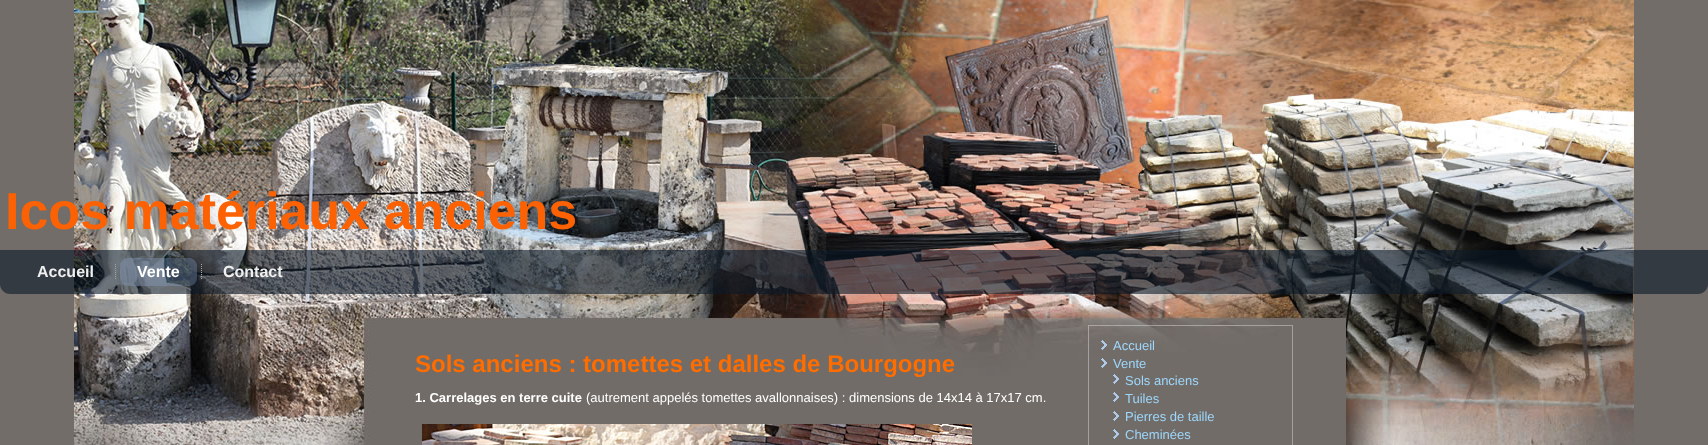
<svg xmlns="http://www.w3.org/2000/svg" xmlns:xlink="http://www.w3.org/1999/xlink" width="1708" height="445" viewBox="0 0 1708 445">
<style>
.cls-1{font:bold 52px Liberation Sans;fill:#fc6203}
.cls-2{font:bold 16px Liberation Sans;fill:#f0f0f0}
.cls-3{font:bold 16px Liberation Sans;fill:#ffffff}
.cls-4{font:bold 24px Liberation Sans;fill:#ff6c00}
.cls-5{font:bold 13px Liberation Sans;fill:#ffffff}
.cls-6{font:13px Liberation Sans;fill:#ffffff}
.cls-7{font:13px Liberation Sans;fill:#9dd7fb}
</style>
<rect width="100%" height="100%" fill="#726d69"/>
<image xlink:href="image0.png" x="74" y="0" width="1560" height="445"/>
<path fill="#0b1928" fill-opacity="0.6" d="M0 250H1708V284C1708 289.5 1703.5 294 1698 294H10C4.5 294 0 289.5 0 284Z"/>
<image xlink:href="image1.png" x="115" y="264" width="1" height="15"/>
<rect fill="#93abd7" fill-opacity="0.3" x="120" y="258" width="77" height="28" rx="8"/>
<image xlink:href="image2.png" x="201" y="264" width="1" height="15"/>
<image xlink:href="image3.png" x="422" y="424" width="550" height="21"/>
<rect fill="none" stroke="#d6d6d6" stroke-opacity="0.5" x="1088.5" y="325.5" width="204" height="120"/>
<image xlink:href="image4.png" x="1101" y="340" width="6" height="10"/>
<image xlink:href="image5.png" x="1101" y="358" width="6" height="10"/>
<image xlink:href="image5.png" x="1113" y="374" width="6" height="10"/>
<image xlink:href="image5.png" x="1113" y="392" width="6" height="10"/>
<image xlink:href="image5.png" x="1113" y="411" width="6" height="10"/>
<image xlink:href="image5.png" x="1113" y="429" width="6" height="10"/>
<text class="cls-1" x="5" y="229">Icos matériaux anciens</text>
<text class="cls-2" x="37" y="277">Accueil</text>
<text class="cls-3" x="137" y="277">Vente</text>
<text class="cls-2" x="223" y="277">Contact</text>
<text class="cls-4" x="415" y="372">Sols anciens : tomettes et dalles de Bourgogne</text>
<text class="cls-5" x="415" y="402">1. Carrelages en terre cuite</text>
<text class="cls-6" x="586" y="402">(autrement appelés tomettes avallonnaises) : dimensions de 14x14 à 17x17 cm.</text>
<text class="cls-7"><tspan x="1113" y="350">Accueil</tspan><tspan x="1113" y="368">Vente</tspan></text>
<text class="cls-7"><tspan x="1125" y="385">Sols anciens</tspan><tspan x="1125" y="403">Tuiles</tspan><tspan x="1125" y="421">Pierres de taille</tspan><tspan x="1125" y="439">Cheminées</tspan></text>
</svg>
